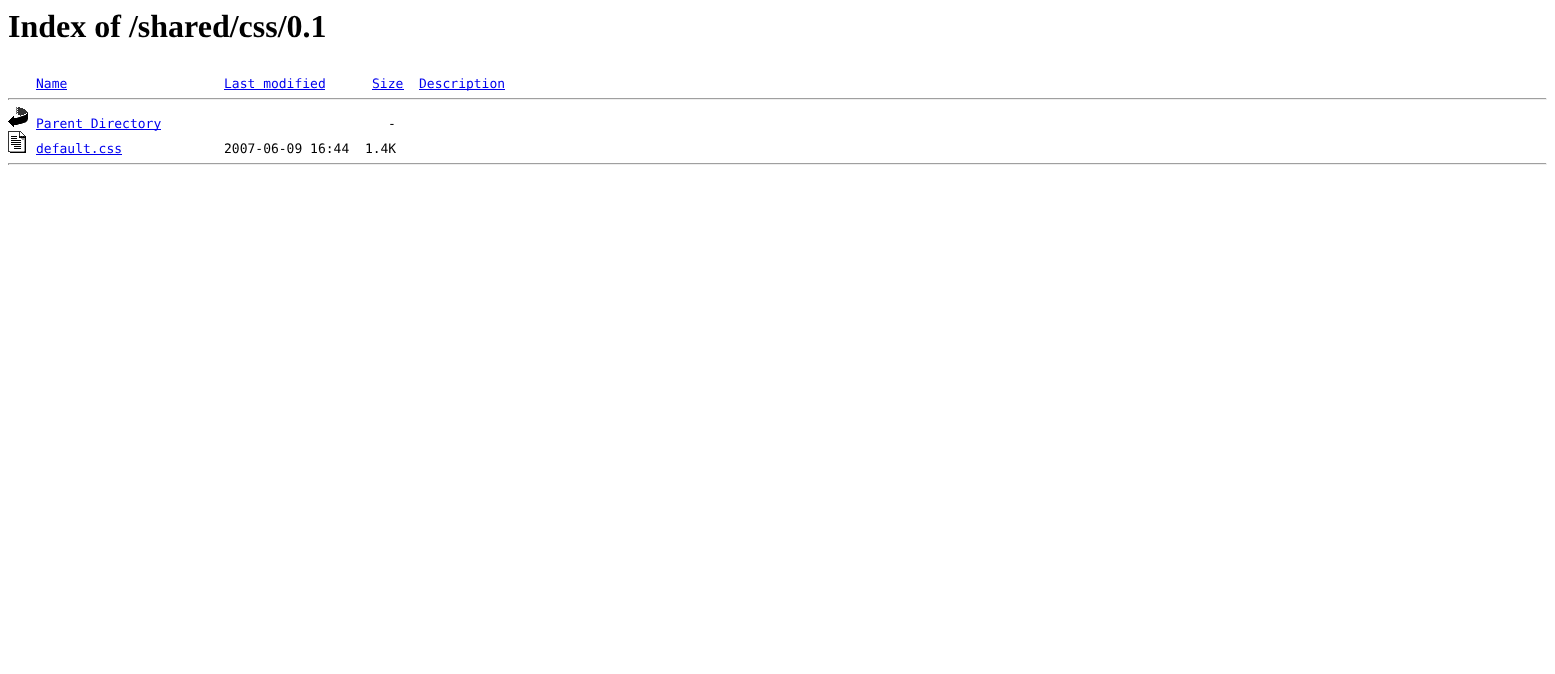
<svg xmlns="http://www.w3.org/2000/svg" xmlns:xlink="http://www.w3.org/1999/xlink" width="1555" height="674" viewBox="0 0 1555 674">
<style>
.cls-1{font:bold 32px Liberation Serif;fill:#000000}
.cls-2{font:13px DejaVu Sans Mono;fill:#0000ee}
.cls-3{font:13px DejaVu Sans Mono;fill:#000000}
</style>
<rect width="100%" height="100%" fill="#ffffff"/>
<rect fill="#0000ee" x="36" y="89" width="31" height="1"/>
<rect fill="#0000ee" x="224" y="89" width="101" height="1"/>
<rect fill="#0000ee" x="372" y="89" width="32" height="1"/>
<rect fill="#0000ee" x="419" y="89" width="86" height="1"/>
<rect fill="#9f9f9f" x="8" y="98" width="1539" height="1"/>
<rect fill="#eeeeee" x="1546" y="98" width="1" height="2"/>
<rect fill="#eeeeee" x="8" y="99" width="1539" height="1"/>
<rect fill="#9f9f9f" x="8" y="98" width="1" height="2"/>
<image xlink:href="image0.png" x="8" y="107" width="20" height="20"/>
<rect fill="#0000ee" x="36" y="129" width="125" height="1"/>
<image xlink:href="image1.png" x="8" y="131" width="18" height="22"/>
<rect fill="#0000ee" x="36" y="154" width="86" height="1"/>
<rect fill="#9f9f9f" x="8" y="163" width="1539" height="1"/>
<rect fill="#eeeeee" x="1546" y="163" width="1" height="2"/>
<rect fill="#eeeeee" x="8" y="164" width="1539" height="1"/>
<rect fill="#9f9f9f" x="8" y="163" width="1" height="2"/>
<text class="cls-1" x="8" y="37">Index of /shared/css/0.1</text>
<text class="cls-2" x="36" y="88">Name</text>
<text class="cls-2" x="224" y="88">Last modified</text>
<text class="cls-2" x="372" y="88">Size</text>
<text class="cls-2" x="419" y="88">Description</text>
<text class="cls-2" x="36" y="128">Parent Directory</text>
<text class="cls-3" x="388" y="128">-</text>
<text class="cls-2" x="36" y="153">default.css</text>
<text class="cls-3" xml:space="preserve" x="224" y="153">2007-06-09 16:44  1.4K</text>
</svg>
